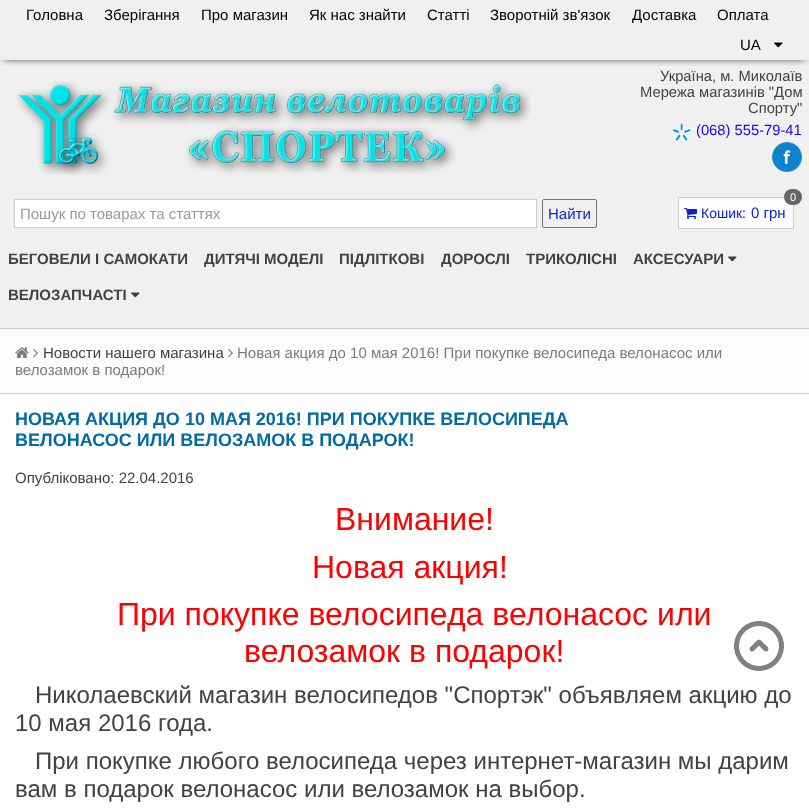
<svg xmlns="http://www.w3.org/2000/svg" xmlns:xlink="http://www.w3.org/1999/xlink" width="809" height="808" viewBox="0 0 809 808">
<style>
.cls-1{font:15px Liberation Sans;fill:#000000}
.cls-2{font:14.75px Liberation Sans;fill:#424242}
.cls-3{font:14.75px Liberation Sans;fill:#1d00ff}
.cls-4{font:15px Liberation Sans;fill:#999999}
.cls-5{font:15px Liberation Sans;fill:#0e22d4}
.cls-6{font:14px Liberation Sans;fill:#0e22d4}
.cls-7{font:11px Liberation Sans;fill:#ffffff}
.cls-8{font:bold 15px Liberation Sans;fill:#424242}
.cls-9{font:15px Liberation Sans;fill:#424242}
.cls-10{font:15px Liberation Sans;fill:#7b7b7b}
.cls-11{font:bold 18px Liberation Sans;fill:#026ba5}
.cls-12{font:32px Liberation Sans;fill:#ff0000}
.cls-13{font:24px Liberation Sans;fill:#424242}
</style>
<defs>
<clipPath id="clip1"><rect x="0" y="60" width="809" height="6"/></clipPath>
</defs>
<rect width="100%" height="100%" fill="#f0f0f0"/>
<g clip-path="url(#clip1)">
<rect fill="#000000" filter="blur(4px)" x="4" y="6" width="801" height="52"/>
</g>
<image xlink:href="image0.png" x="774" y="42" width="9" height="6"/>
<image xlink:href="image1.png" x="17" y="81" width="514" height="94"/>
<image xlink:href="image2.png" x="672" y="123" width="19" height="18"/>
<image xlink:href="image3.png" x="772" y="142" width="30" height="30"/>
<rect fill="#ffffff" stroke="#cbcbcb" x="14.5" y="199.5" width="522" height="28"/>
<rect fill="none" stroke="#767676" x="542.5" y="199.5" width="54" height="28" rx="1.5"/>
<rect fill="#fcfcfc" stroke="#cccccc" x="678.5" y="197.5" width="115" height="31"/>
<image xlink:href="image4.png" x="684" y="208" width="13" height="11"/>
<rect fill="#666666" x="784" y="189" width="18" height="16" rx="8"/>
<image xlink:href="image5.png" x="728" y="256" width="9" height="6"/>
<image xlink:href="image5.png" x="131" y="292" width="9" height="6"/>
<rect fill="#fcfcfc" x="0" y="329" width="809" height="64"/>
<rect fill="#cccccc" x="0" y="328" width="809" height="1"/>
<rect fill="#cccccc" x="0" y="393" width="809" height="1"/>
<image xlink:href="image6.png" x="15" y="347" width="14" height="11"/>
<image xlink:href="image7.png" x="33" y="349" width="5" height="9"/>
<image xlink:href="image7.png" x="228" y="349" width="5" height="9"/>
<rect fill="#ffffff" x="0" y="394" width="809" height="414"/>
<image xlink:href="image8.png" x="734" y="621" width="50" height="50"/>
<text class="cls-1" x="26" y="20">Головна</text>
<text class="cls-1" x="104" y="20">Зберігання</text>
<text class="cls-1" x="201" y="20">Про магазин</text>
<text class="cls-1" x="309" y="20">Як нас знайти</text>
<text class="cls-1" x="427" y="20">Статті</text>
<text class="cls-1" x="490" y="20">Зворотній зв'язок</text>
<text class="cls-1" x="632" y="20">Доставка</text>
<text class="cls-1" x="717" y="20">Оплата</text>
<text class="cls-1" x="740" y="50">UA</text>
<text class="cls-2" x="660" y="81">Україна, м. Миколаїв</text>
<text class="cls-2" x="640" y="97">Мережа магазинів "Дом</text>
<text class="cls-2" x="748" y="113">Спорту"</text>
<text class="cls-3" x="696" y="135">(068) 555-79-41</text>
<text class="cls-4" x="20" y="219">Пошук по товарах та статтях</text>
<text class="cls-5" x="548" y="219">Найти</text>
<text class="cls-6" x="701" y="218">Кошик:</text>
<text class="cls-7" x="790" y="201">0</text>
<text class="cls-5" x="751" y="218">0 грн</text>
<text class="cls-8" x="8" y="264">БЕГОВЕЛИ І САМОКАТИ</text>
<text class="cls-8" x="204" y="264">ДИТЯЧІ МОДЕЛІ</text>
<text class="cls-8" x="339" y="264">ПІДЛІТКОВІ</text>
<text class="cls-8" x="441" y="264">ДОРОСЛІ</text>
<text class="cls-8" x="526" y="264">ТРИКОЛІСНІ</text>
<text class="cls-8" x="633" y="264">АКСЕСУАРИ</text>
<text class="cls-8" x="8" y="300">ВЕЛОЗАПЧАСТІ</text>
<text class="cls-9" x="43" y="358">Новости нашего магазина</text>
<text class="cls-10" x="237" y="358">Новая акция до 10 мая 2016! При покупке велосипеда велонасос или</text>
<text class="cls-10" x="15" y="375">велозамок в подарок!</text>
<text class="cls-11"><tspan x="15" y="425">НОВАЯ АКЦИЯ ДО 10 МАЯ 2016! ПРИ ПОКУПКЕ ВЕЛОСИПЕДА</tspan><tspan x="15" y="446">ВЕЛОНАСОС ИЛИ ВЕЛОЗАМОК В ПОДАРОК!</tspan></text>
<text class="cls-9" x="15" y="483">Опубліковано: 22.04.2016</text>
<text class="cls-12" x="335" y="530">Внимание!</text>
<text class="cls-12" x="312" y="578">Новая акция!</text>
<text class="cls-12" x="117" y="625">При покупке велосипеда велонасос или</text>
<text class="cls-12" x="244" y="662">велозамок в подарок!</text>
<text class="cls-13" x="35" y="703">Николаевский магазин велосипедов "Спортэк" объявляем акцию до</text>
<text class="cls-13" x="15" y="731">10 мая 2016 года.</text>
<text class="cls-13" x="35" y="769">При покупке любого велосипеда через интернет-магазин мы дарим</text>
<text class="cls-13" x="15" y="797">вам в подарок велонасос или велозамок на выбор.</text>
</svg>
